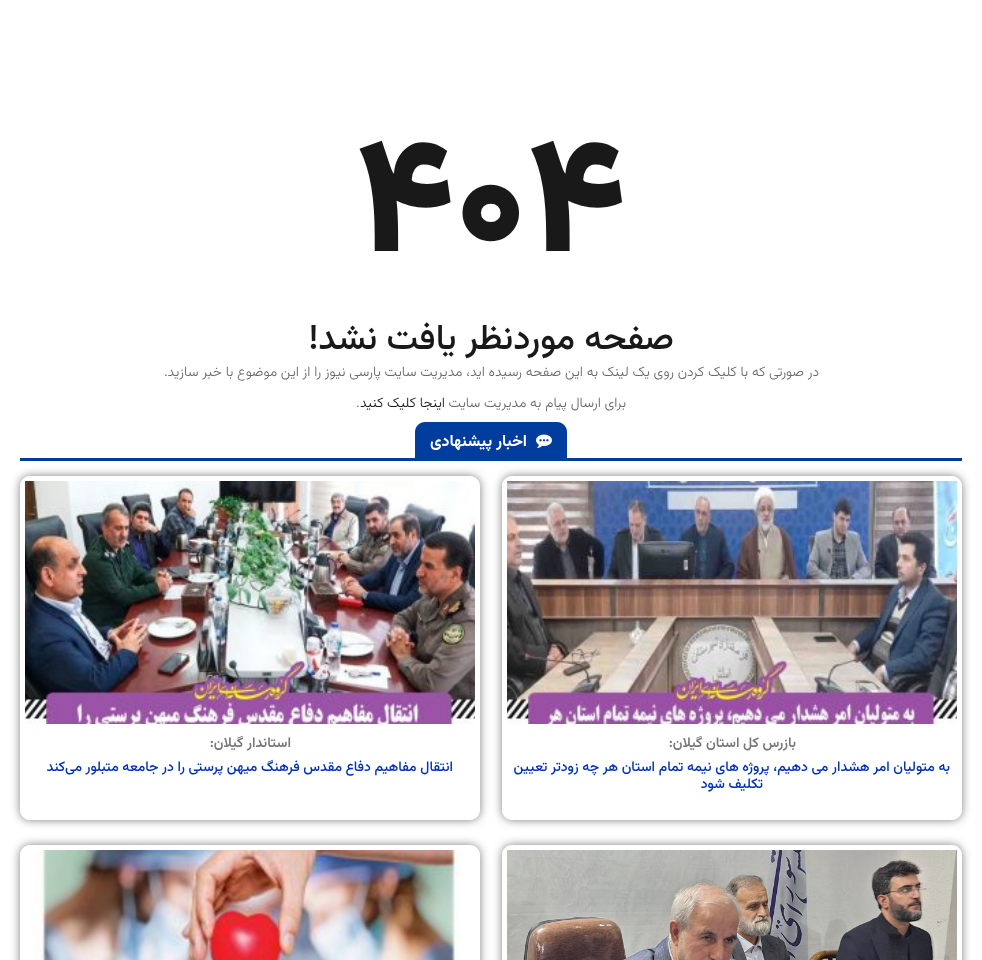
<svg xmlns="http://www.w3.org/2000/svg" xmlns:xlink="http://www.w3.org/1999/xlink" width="982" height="960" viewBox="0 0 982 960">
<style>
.cls-1{font:900 163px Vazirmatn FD;fill:#191919}
.cls-2{font:500 35.25px Vazirmatn FD;direction:rtl;fill:#191919}
.cls-3{font:300 14px Vazirmatn FD;direction:rtl;fill:#6b6b6b}
.cls-4{font:300 14px Vazirmatn FD;direction:rtl;fill:#191919}
.cls-5{font:300 14px Vazirmatn FD;fill:#6b6b6b}
.cls-6{font:bold 16px Vazirmatn FD;direction:rtl;fill:#ffffff}
.cls-7{font:600 14px Vazirmatn FD;direction:rtl;fill:#777777}
.cls-8{font:500 14px Vazirmatn FD;direction:rtl;fill:#0032b8}
</style>
<defs>
<clipPath id="clip1"><path d="M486 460H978V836H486ZM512 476H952C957.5 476 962 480.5 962 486V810C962 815.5 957.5 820 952 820H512C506.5 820 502 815.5 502 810V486C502 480.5 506.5 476 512 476Z" clip-rule="evenodd"/></clipPath>
<clipPath id="clip2"><path d="M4 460H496V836H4ZM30 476H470C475.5 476 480 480.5 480 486V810C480 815.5 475.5 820 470 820H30C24.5 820 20 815.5 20 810V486C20 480.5 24.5 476 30 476Z" clip-rule="evenodd"/></clipPath>
<clipPath id="clip3"><path d="M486 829H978V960H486ZM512 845H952C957.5 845 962 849.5 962 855V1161C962 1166.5 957.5 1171 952 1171H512C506.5 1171 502 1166.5 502 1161V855C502 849.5 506.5 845 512 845Z" clip-rule="evenodd"/></clipPath>
<clipPath id="clip4"><path d="M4 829H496V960H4ZM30 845H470C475.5 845 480 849.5 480 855V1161C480 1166.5 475.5 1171 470 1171H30C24.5 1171 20 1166.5 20 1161V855C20 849.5 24.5 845 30 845Z" clip-rule="evenodd"/></clipPath>
</defs>
<rect width="100%" height="100%" fill="#ffffff"/>
<rect fill="#013d9d" x="20" y="458" width="942" height="3"/>
<path fill="#013d9d" d="M425 422H557C562.5 422 567 426.5 567 432V458H415V432C415 426.5 419.5 422 425 422Z"/>
<image xlink:href="image0.png" x="536" y="434" width="16" height="14"/>
<g clip-path="url(#clip1)">
<rect fill="#000000" fill-opacity="0.5" filter="blur(5px)" x="502" y="476" width="460" height="344" rx="10"/>
</g>
<image xlink:href="image1.png" x="507" y="481" width="450" height="243"/>
<g clip-path="url(#clip2)">
<rect fill="#000000" fill-opacity="0.5" filter="blur(5px)" x="20" y="476" width="460" height="344" rx="10"/>
</g>
<image xlink:href="image2.png" x="25" y="481" width="450" height="243"/>
<g clip-path="url(#clip3)">
<rect fill="#000000" fill-opacity="0.5" filter="blur(5px)" x="502" y="845" width="460" height="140" rx="10"/>
</g>
<image xlink:href="image3.png" x="507" y="850" width="450" height="110"/>
<g clip-path="url(#clip4)">
<rect fill="#000000" fill-opacity="0.5" filter="blur(5px)" x="20" y="845" width="460" height="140" rx="10"/>
</g>
<image xlink:href="image4.png" x="29" y="850" width="431" height="110"/>
<text class="cls-1" x="356" y="251">404</text>
<text class="cls-2" x="674" y="349">صفحه موردنظر یافت نشد!</text>
<text class="cls-3" x="819" y="376">در صورتی که با کلیک کردن روی یک لینک به این صفحه رسیده اید، مدیریت سایت پارسی نیوز را از این موضوع با خبر سازید.</text>
<text class="cls-3" x="626" y="407">برای ارسال پیام به مدیریت سایت</text>
<text class="cls-4" x="445" y="407">اینجا کلیک کنید</text>
<text class="cls-5" x="356" y="407">.</text>
<text class="cls-6" x="527" y="446">اخبار پیشنهادی</text>
<text class="cls-7" x="796" y="747">بازرس کل استان گیلان:</text>
<text class="cls-8" x="950" y="771">به متولیان امر هشدار می دهیم، پروژه های نیمه تمام استان هر چه زودتر تعیین</text>
<text class="cls-8" x="763" y="788">تکلیف شود</text>
<text class="cls-7" x="291" y="747">استاندار گیلان:</text>
<text class="cls-8" x="453" y="771">انتقال مفاهیم دفاع مقدس فرهنگ میهن پرستی را در جامعه متبلور می‌کند</text>
</svg>
